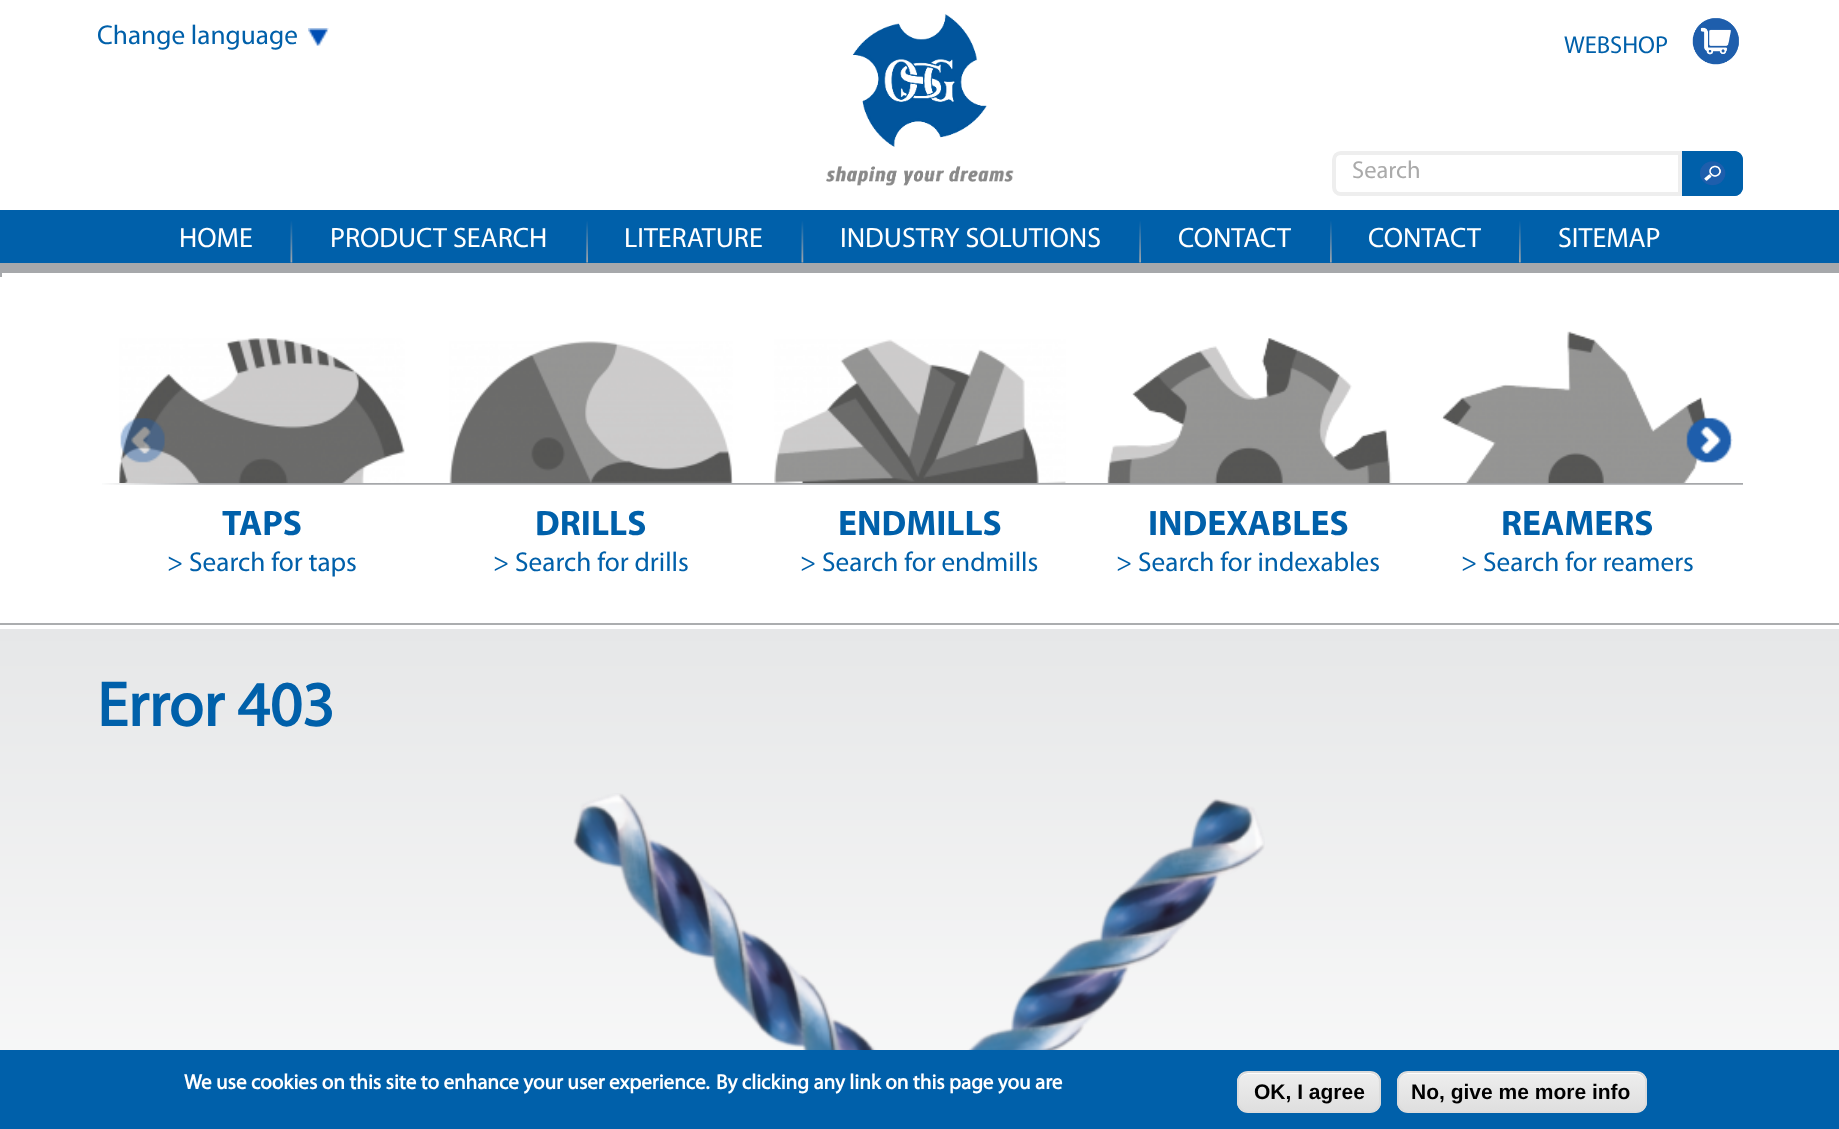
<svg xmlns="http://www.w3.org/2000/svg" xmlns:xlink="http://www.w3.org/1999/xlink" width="1839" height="1129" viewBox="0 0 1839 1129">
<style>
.cls-1{font:27.25px Myriad;fill:#0060aa}
.cls-2{font:24.5px Myriad;fill:#0060aa}
.cls-3{font:24.5px Myriad;fill:#aaaaaa}
.cls-4{font:28px Myriad;fill:#ffffff}
.cls-5{font:bold 35.5px 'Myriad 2';fill:#0060aa}
.cls-6{font:bold 63px Myriad;fill:#0060aa}
.cls-7{font:bold 21px Myriad;fill:#ffffff}
.cls-8{font:bold 21px Liberation Sans;fill:#000000}
</style>
<defs>
<clipPath id="clip1"><rect x="1237" y="1071" width="144" height="42" rx="11"/></clipPath>
<linearGradient id="g1" gradientUnits="userSpaceOnUse" x1="1309" y1="1073" x2="1309" y2="1111"><stop offset="0.05" stop-color="#ededed"/><stop offset="1" stop-color="#dfdfdf"/></linearGradient>
<clipPath id="clip2"><rect x="1397" y="1071" width="250" height="42" rx="11"/></clipPath>
<linearGradient id="g2" gradientUnits="userSpaceOnUse" x1="1522" y1="1073" x2="1522" y2="1111"><stop offset="0.05" stop-color="#ededed"/><stop offset="1" stop-color="#dfdfdf"/></linearGradient>
</defs>
<rect width="100%" height="100%" fill="#ffffff"/>
<image xlink:href="image0.png" x="308" y="28" width="21" height="18"/>
<image xlink:href="image1.png" x="826" y="14" width="188" height="172"/>
<image xlink:href="image2.png" x="1692" y="18" width="47" height="47"/>
<path fill="none" stroke="#eeeeee" stroke-width="4" d="M1341 153H1680V194H1341C1337 194 1334 191 1334 187V160C1334 156 1337 153 1341 153Z"/>
<path fill="#0060aa" d="M1682 151H1734C1739 151 1743 155 1743 160V187C1743 192 1739 196 1734 196H1682Z"/>
<image xlink:href="image3.png" x="1700" y="161" width="26" height="25"/>
<path fill="none" stroke="#0060aa" stroke-width="2" d="M1683 152H1734C1738.5 152 1742 155.5 1742 160V187C1742 191.5 1738.5 195 1734 195H1683Z"/>
<rect fill="#0060aa" x="0" y="210" width="1839" height="53"/>
<image xlink:href="image4.png" x="290" y="221" width="3" height="42"/>
<image xlink:href="image5.png" x="586" y="221" width="2" height="42"/>
<image xlink:href="image4.png" x="801" y="221" width="3" height="42"/>
<image xlink:href="image5.png" x="1139" y="221" width="2" height="42"/>
<image xlink:href="image6.png" x="1330" y="221" width="2" height="42"/>
<image xlink:href="image6.png" x="1519" y="221" width="2" height="42"/>
<rect fill="#a6a8ab" x="0" y="263" width="1839" height="10"/>
<rect fill="#a6a8ab" x="0" y="273" width="2" height="4"/>
<rect fill="#abadaf" x="0" y="623" width="1839" height="2"/>
<image xlink:href="image10.png" x="119" y="338" width="286" height="145"/>
<image xlink:href="image7.png" x="120" y="418" width="45" height="45"/>
<image xlink:href="image14.png" x="1441" y="331" width="266" height="152"/>
<image xlink:href="image8.png" x="1686" y="417" width="47" height="46"/>
<image xlink:href="image9.png" x="102" y="483" width="1641" height="2"/>
<image xlink:href="image11.png" x="449" y="341" width="284" height="142"/>
<image xlink:href="image12.png" x="774" y="339" width="292" height="144"/>
<image xlink:href="image13.png" x="1107" y="338" width="285" height="145"/>
<image xlink:href="image15.png" x="0" y="629" width="1839" height="421"/>
<image xlink:href="image16.png" x="573" y="793" width="692" height="257"/>
<rect fill="#0060aa" x="0" y="1050" width="1839" height="79"/>
<g clip-path="url(#clip1)">
<rect fill="url(#g1)" x="1237" y="1073" width="144" height="38"/>
</g>
<path fill="#ffffff" d="M1248 1074H1370C1375 1074 1379 1078 1379 1083C1379 1068 1358 1073 1350 1073H1268C1260 1073 1239 1068 1239 1083C1239 1078 1243 1074 1248 1074Z"/>
<rect fill="none" stroke="#dcdcdc" stroke-width="2" x="1238" y="1072" width="142" height="40" rx="10"/>
<g clip-path="url(#clip2)">
<rect fill="url(#g2)" x="1397" y="1073" width="250" height="38"/>
</g>
<path fill="#ffffff" d="M1407 1074H1636C1641 1074 1645 1078 1645 1083V1082C1645 1077 1641 1073 1636 1073H1407C1402 1073 1398 1077 1398 1082V1083C1398 1078 1402 1074 1407 1074Z"/>
<rect fill="none" stroke="#dcdcdc" stroke-width="2" x="1398" y="1072" width="248" height="40" rx="10"/>
<text class="cls-1" x="97" y="44">Change language</text>
<text class="cls-2" x="1564" y="53">WEBSHOP</text>
<text class="cls-3" x="1352" y="178">Search</text>
<text class="cls-4" x="179" y="247">HOME</text>
<text class="cls-4" x="330" y="247">PRODUCT SEARCH</text>
<text class="cls-4" x="624" y="247">LITERATURE</text>
<text class="cls-4" x="840" y="247">INDUSTRY SOLUTIONS</text>
<text class="cls-4" x="1178" y="247">CONTACT</text>
<text class="cls-4" x="1368" y="247">CONTACT</text>
<text class="cls-4" x="1558" y="247">SITEMAP</text>
<text class="cls-5" x="222" y="535">TAPS</text>
<text class="cls-1" x="167" y="571">&gt; Search for taps</text>
<text class="cls-5" x="535" y="535">DRILLS</text>
<text class="cls-1" x="493" y="571">&gt; Search for drills</text>
<text class="cls-5" x="838" y="535">ENDMILLS</text>
<text class="cls-1" x="800" y="571">&gt; Search for endmills</text>
<text class="cls-5" x="1148" y="535">INDEXABLES</text>
<text class="cls-1" x="1116" y="571">&gt; Search for indexables</text>
<text class="cls-5" x="1501" y="535">REAMERS</text>
<text class="cls-1" x="1461" y="571">&gt; Search for reamers</text>
<text class="cls-6" x="97" y="726">Error 403</text>
<text class="cls-7" x="184" y="1089">We use cookies on this site to enhance your user experience.</text>
<text class="cls-7" x="716" y="1089">By clicking any link on this page you are</text>
<text class="cls-8" x="1254" y="1099">OK, I agree</text>
<text class="cls-8" x="1411" y="1099">No, give me more info</text>
</svg>
